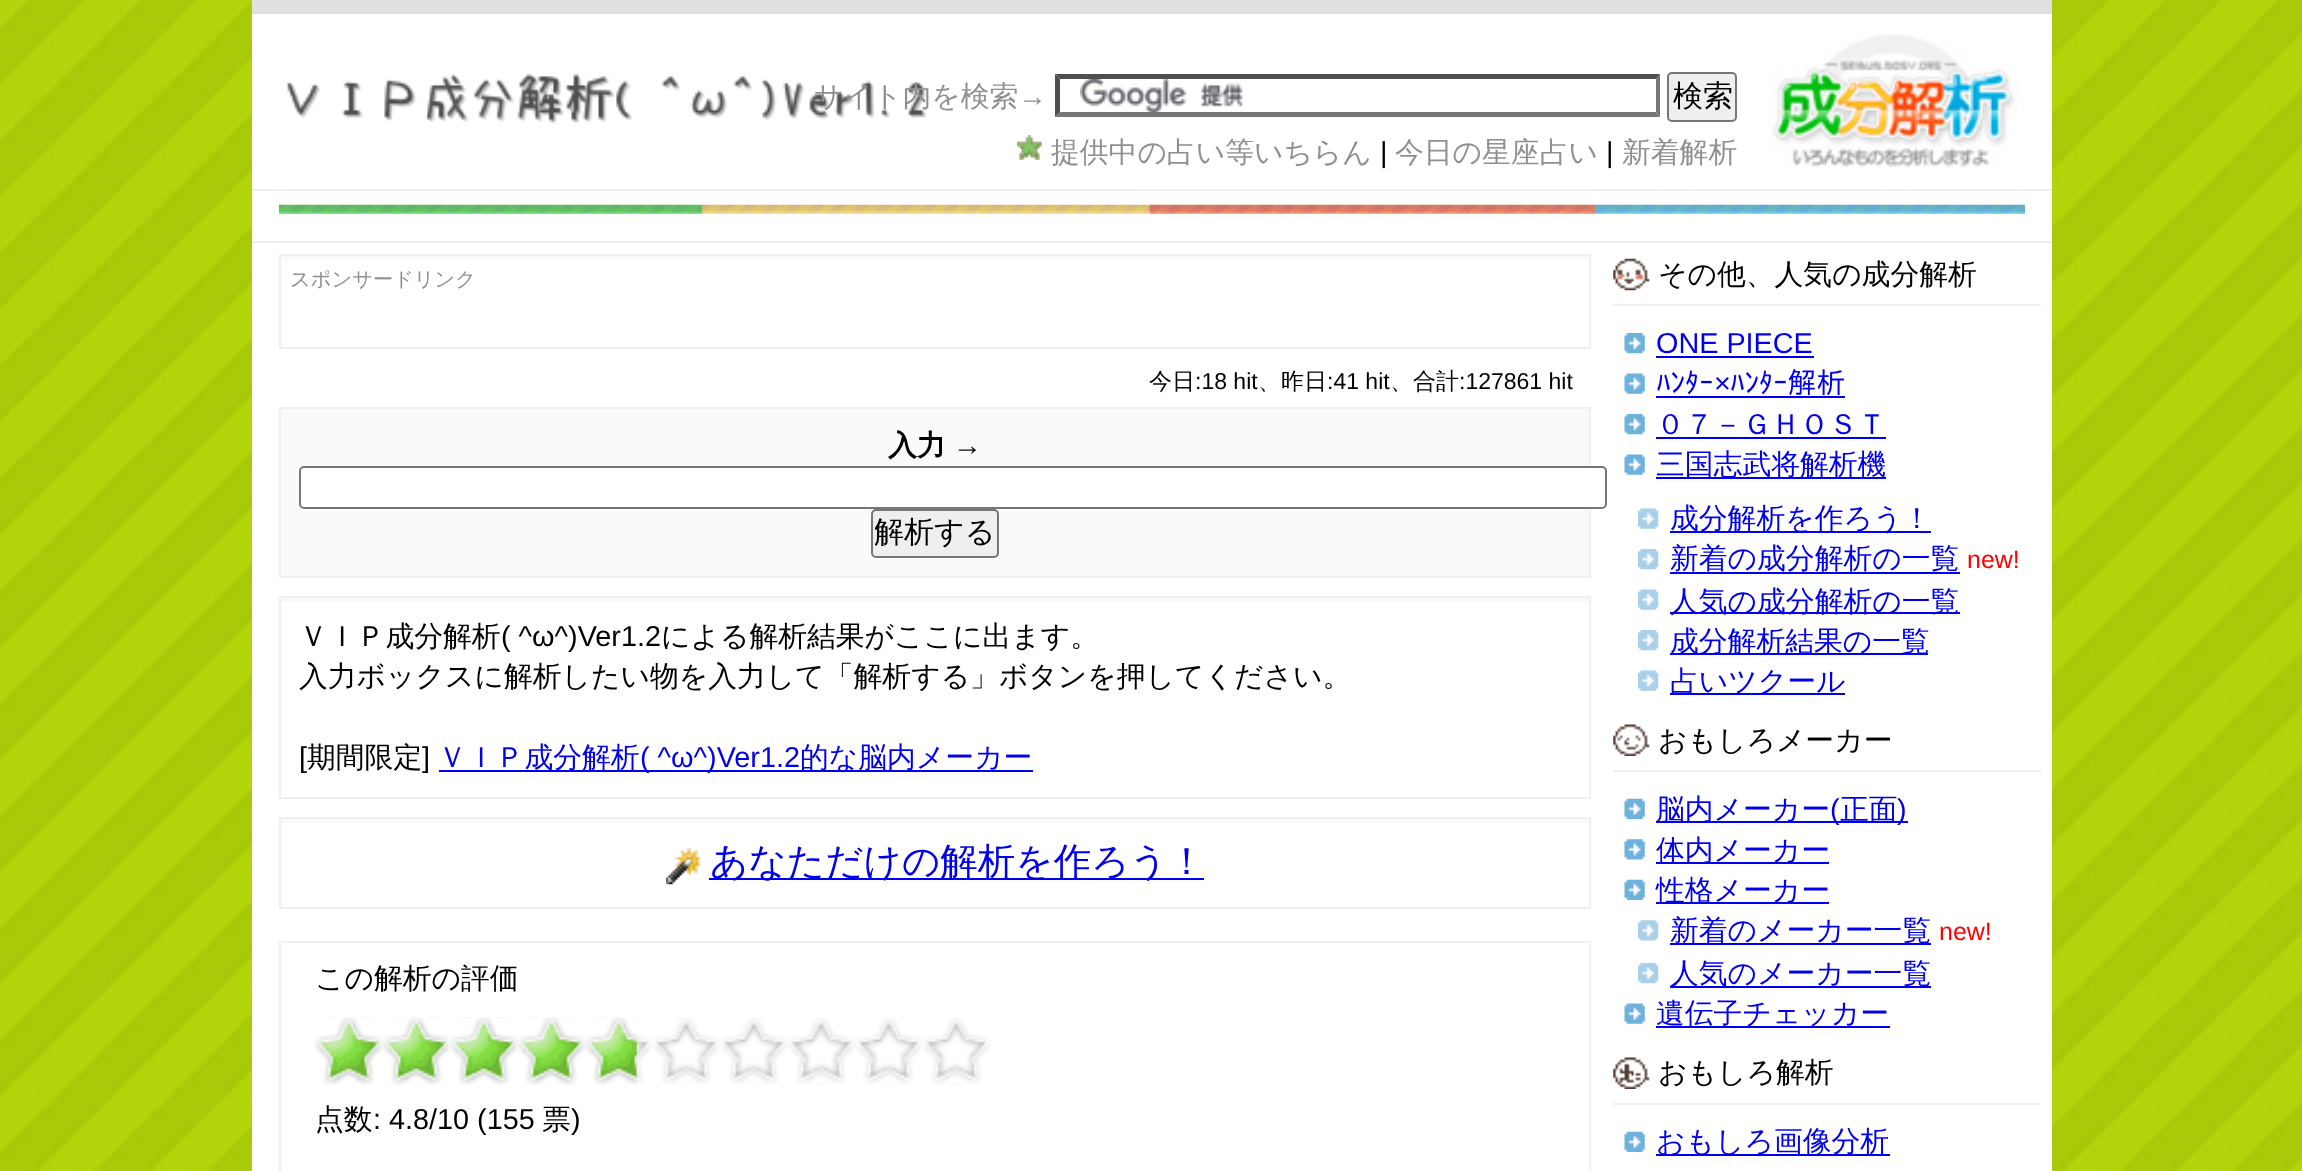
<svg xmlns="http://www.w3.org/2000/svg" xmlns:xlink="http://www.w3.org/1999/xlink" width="2302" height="1171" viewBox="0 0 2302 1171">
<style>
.cls-1{font:500 28.8px WenQuanYi Zen Hei;fill:#909090}
.cls-2{font:28.8px Liberation Sans;fill:#909090}
.cls-3{font:500 30px WenQuanYi Zen Hei;fill:#000000}
.cls-4{font:28.8px Liberation Sans;fill:#000000}
.cls-5{font:500 20.25px WenQuanYi Zen Hei;fill:#909090}
.cls-6{font:500 23px WenQuanYi Zen Hei;fill:#000000}
.cls-7{font:23px Liberation Sans;fill:#000000}
.cls-8{font:bold 28.8px WenQuanYi Zen Hei;fill:#000000}
.cls-9{font:bold 28.8px Liberation Sans;fill:#000000}
.cls-10{font:500 28.8px WenQuanYi Zen Hei;fill:#000000}
.cls-11{font:500 28.8px WenQuanYi Zen Hei;fill:#0000ee}
.cls-12{font:28.8px Liberation Sans;fill:#0000ee}
.cls-13{font:500 37.5px WenQuanYi Zen Hei;fill:#0000ee}
.cls-14{font:28.8px IPAGothic;fill:#0000ee}
.cls-15{font:25px Liberation Sans;fill:#ff0000}
</style>
<defs>
<clipPath id="clip1"><rect x="875" y="513" width="120" height="41"/></clipPath>
</defs>
<rect width="100%" height="100%" fill="#ffffff"/>
<image xlink:href="image0.png" x="0" y="0" width="2302" height="1171"/>
<rect fill="#ffffff" x="252" y="14" width="1800" height="1157"/>
<rect fill="#e0e0e0" x="252" y="0" width="1800" height="14"/>
<rect fill="#f0f0f0" x="252" y="189" width="1800" height="2"/>
<image xlink:href="image1.png" x="1768" y="34" width="252" height="134"/>
<image xlink:href="image2.png" x="285" y="73" width="642" height="51"/>
<image xlink:href="image3.png" x="1080" y="79" width="164" height="33"/>
<path fill="#4f4f4f" d="M1055 74H1660L1656 79H1060Z"/>
<path fill="#767676" d="M1660 74V117L1656 112V79Z"/>
<path fill="#767676" d="M1660 117H1055L1060 112H1656Z"/>
<path fill="#4f4f4f" d="M1055 117V74L1060 79V112Z"/>
<rect fill="#efefef" stroke="#767676" stroke-width="2" x="1668" y="73" width="68" height="48" rx="4"/>
<image xlink:href="image4.png" x="1017" y="135" width="25" height="25"/>
<image xlink:href="image5.png" x="279" y="204" width="1746" height="10"/>
<rect fill="#f0f0f0" x="252" y="241" width="1800" height="2"/>
<rect fill="#f9f9f9" x="279" y="256" width="1312" height="4"/>
<rect fill="none" stroke="#f0f0f0" stroke-width="2" x="280" y="255" width="1310" height="93"/>
<rect fill="#fafafa" stroke="#f0f0f0" stroke-width="2" x="280" y="408" width="1310" height="169"/>
<rect fill="#ffffff" stroke="#767676" stroke-width="2" x="300" y="467" width="1306" height="41" rx="4"/>
<rect fill="#efefef" stroke="#767676" stroke-width="2" x="872" y="510" width="126" height="47" rx="4"/>
<rect fill="#f9f9f9" x="279" y="598" width="1312" height="4"/>
<rect fill="none" stroke="#f0f0f0" stroke-width="2" x="280" y="597" width="1310" height="201"/>
<rect fill="#0000ee" x="439" y="770" width="594" height="2"/>
<rect fill="#f9f9f9" x="279" y="819" width="1312" height="4"/>
<rect fill="none" stroke="#f0f0f0" stroke-width="2" x="280" y="818" width="1310" height="90"/>
<image xlink:href="image6.png" x="666" y="848" width="35" height="37"/>
<rect fill="#0000ee" x="709" y="878" width="495" height="2"/>
<rect fill="none" stroke="#f0f0f0" stroke-width="2" x="280" y="942" width="1310" height="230"/>
<image xlink:href="image7.png" x="315" y="1017" width="675" height="68"/>
<image xlink:href="image8.png" x="315" y="1017" width="322" height="68"/>
<image xlink:href="image9.png" x="1613" y="258" width="37" height="33"/>
<rect fill="#f0f0f0" x="1613" y="304" width="428" height="2"/>
<image xlink:href="image10.png" x="1624" y="333" width="21" height="21"/>
<rect fill="#0000ee" x="1656" y="356" width="158" height="2"/>
<image xlink:href="image11.png" x="1624" y="373" width="21" height="21"/>
<rect fill="#0000ee" x="1656" y="396" width="189" height="2"/>
<image xlink:href="image10.png" x="1624" y="414" width="21" height="21"/>
<rect fill="#0000ee" x="1656" y="437" width="230" height="2"/>
<image xlink:href="image11.png" x="1624" y="454" width="21" height="21"/>
<rect fill="#0000ee" x="1656" y="477" width="230" height="2"/>
<image xlink:href="image12.png" x="1638" y="508" width="21" height="21"/>
<rect fill="#0000ee" x="1670" y="531" width="261" height="2"/>
<image xlink:href="image13.png" x="1638" y="549" width="21" height="21"/>
<rect fill="#0000ee" x="1670" y="572" width="290" height="2"/>
<image xlink:href="image12.png" x="1638" y="589" width="21" height="21"/>
<rect fill="#0000ee" x="1670" y="612" width="290" height="2"/>
<image xlink:href="image13.png" x="1638" y="630" width="21" height="21"/>
<rect fill="#0000ee" x="1670" y="653" width="258" height="2"/>
<image xlink:href="image12.png" x="1638" y="670" width="21" height="21"/>
<rect fill="#0000ee" x="1670" y="693" width="175" height="2"/>
<image xlink:href="image14.png" x="1613" y="724" width="37" height="32"/>
<rect fill="#f0f0f0" x="1613" y="770" width="428" height="2"/>
<image xlink:href="image15.png" x="1624" y="798" width="21" height="21"/>
<rect fill="#0000ee" x="1656" y="821" width="252" height="2"/>
<image xlink:href="image16.png" x="1624" y="839" width="21" height="21"/>
<rect fill="#0000ee" x="1656" y="862" width="173" height="2"/>
<image xlink:href="image15.png" x="1624" y="879" width="21" height="21"/>
<rect fill="#0000ee" x="1656" y="902" width="173" height="2"/>
<image xlink:href="image17.png" x="1638" y="920" width="21" height="21"/>
<rect fill="#0000ee" x="1670" y="943" width="261" height="2"/>
<image xlink:href="image13.png" x="1638" y="963" width="21" height="21"/>
<rect fill="#0000ee" x="1670" y="986" width="261" height="2"/>
<image xlink:href="image11.png" x="1624" y="1003" width="21" height="21"/>
<rect fill="#0000ee" x="1656" y="1026" width="234" height="2"/>
<image xlink:href="image18.png" x="1613" y="1057" width="37" height="32"/>
<rect fill="#f0f0f0" x="1613" y="1103" width="428" height="2"/>
<image xlink:href="image15.png" x="1624" y="1131" width="21" height="21"/>
<rect fill="#0000ee" x="1656" y="1154" width="234" height="2"/>
<text class="cls-1" x="814" y="106">サイト内を検索</text>
<text class="cls-2" x="1018" y="106">→</text>
<text class="cls-3" x="1673" y="106">検索</text>
<text class="cls-1" x="1051" y="162">提供中の占い等いちらん</text>
<text class="cls-4" x="1380" y="162">|</text>
<text class="cls-1" x="1395" y="162">今日の星座占い</text>
<text class="cls-4" x="1606" y="162">|</text>
<text class="cls-1" x="1622" y="162">新着解析</text>
<text class="cls-5" x="290" y="286">スポンサードリンク</text>
<text class="cls-6" x="1149" y="389">今日</text>
<text class="cls-7" x="1195" y="389">:18 hit</text>
<text class="cls-6" x="1258" y="389">、昨日</text>
<text class="cls-7" x="1327" y="389">:41 hit</text>
<text class="cls-6" x="1390" y="389">、合計</text>
<text class="cls-7" x="1459" y="389">:127861 hit</text>
<text class="cls-8" x="888" y="455">入力</text>
<text class="cls-9" x="953" y="455">→</text>
<g clip-path="url(#clip1)">
<text class="cls-3" x="874" y="542">解析する</text>
</g>
<text class="cls-10" x="299" y="646">ＶＩＰ成分解析</text>
<text class="cls-4" x="501" y="646">( ^ω^)Ver1.2</text>
<text class="cls-10" x="661" y="646">による解析結果がここに出ます。</text>
<text class="cls-10" x="299" y="686">入力ボックスに解析したい物を入力して「解析する」ボタンを押してください。</text>
<text class="cls-4" x="299" y="767">[</text>
<text class="cls-10" x="307" y="767">期間限定</text>
<text class="cls-4" x="422" y="767">]</text>
<text class="cls-11" x="438" y="767">ＶＩＰ成分解析</text>
<text class="cls-12" x="640" y="767">( ^ω^)Ver1.2</text>
<text class="cls-11" x="800" y="767">的な脳内メーカー</text>
<text class="cls-13" x="710" y="874">あなただけの解析を作ろう！</text>
<text class="cls-10" x="315" y="988">この解析の評価</text>
<text class="cls-10" x="315" y="1129">点数</text>
<text class="cls-4" x="373" y="1129">: 4.8/10 (155</text>
<text class="cls-10" x="542" y="1129">票</text>
<text class="cls-4" x="571" y="1129">)</text>
<text class="cls-10" x="1658" y="284">その他、人気の成分解析</text>
<text class="cls-12" x="1656" y="353">ONE PIECE</text>
<text class="cls-14" x="1656" y="393">ﾊﾝﾀｰ</text>
<text class="cls-12" x="1714" y="393">×</text>
<text class="cls-14" x="1730" y="393">ﾊﾝﾀｰ解析</text>
<text class="cls-11"><tspan x="1656" y="434">０７－ＧＨＯＳＴ</tspan><tspan x="1656" y="474">三国志武将解析機</tspan></text>
<text class="cls-11"><tspan x="1670" y="528">成分解析を作ろう！</tspan><tspan x="1670" y="568">新着の成分解析の一覧</tspan></text>
<text class="cls-15" x="1967" y="568">new!</text>
<text class="cls-11"><tspan x="1670" y="611">人気の成分解析の一覧</tspan><tspan x="1670" y="651">成分解析結果の一覧</tspan><tspan x="1670" y="691">占いツクール</tspan></text>
<text class="cls-10" x="1658" y="750">おもしろメーカー</text>
<text class="cls-11" x="1656" y="819">脳内メーカー</text>
<text class="cls-12" x="1830" y="819">(</text>
<text class="cls-11" x="1840" y="819">正面</text>
<text class="cls-12" x="1897" y="819">)</text>
<text class="cls-11"><tspan x="1656" y="860">体内メーカー</tspan><tspan x="1656" y="900">性格メーカー</tspan></text>
<text class="cls-11" x="1670" y="940">新着のメーカー一覧</text>
<text class="cls-15" x="1939" y="940">new!</text>
<text class="cls-11" x="1670" y="983">人気のメーカー一覧</text>
<text class="cls-11" x="1656" y="1023">遺伝子チェッカー</text>
<text class="cls-10" x="1658" y="1082">おもしろ解析</text>
<text class="cls-11" x="1656" y="1151">おもしろ画像分析</text>
</svg>
